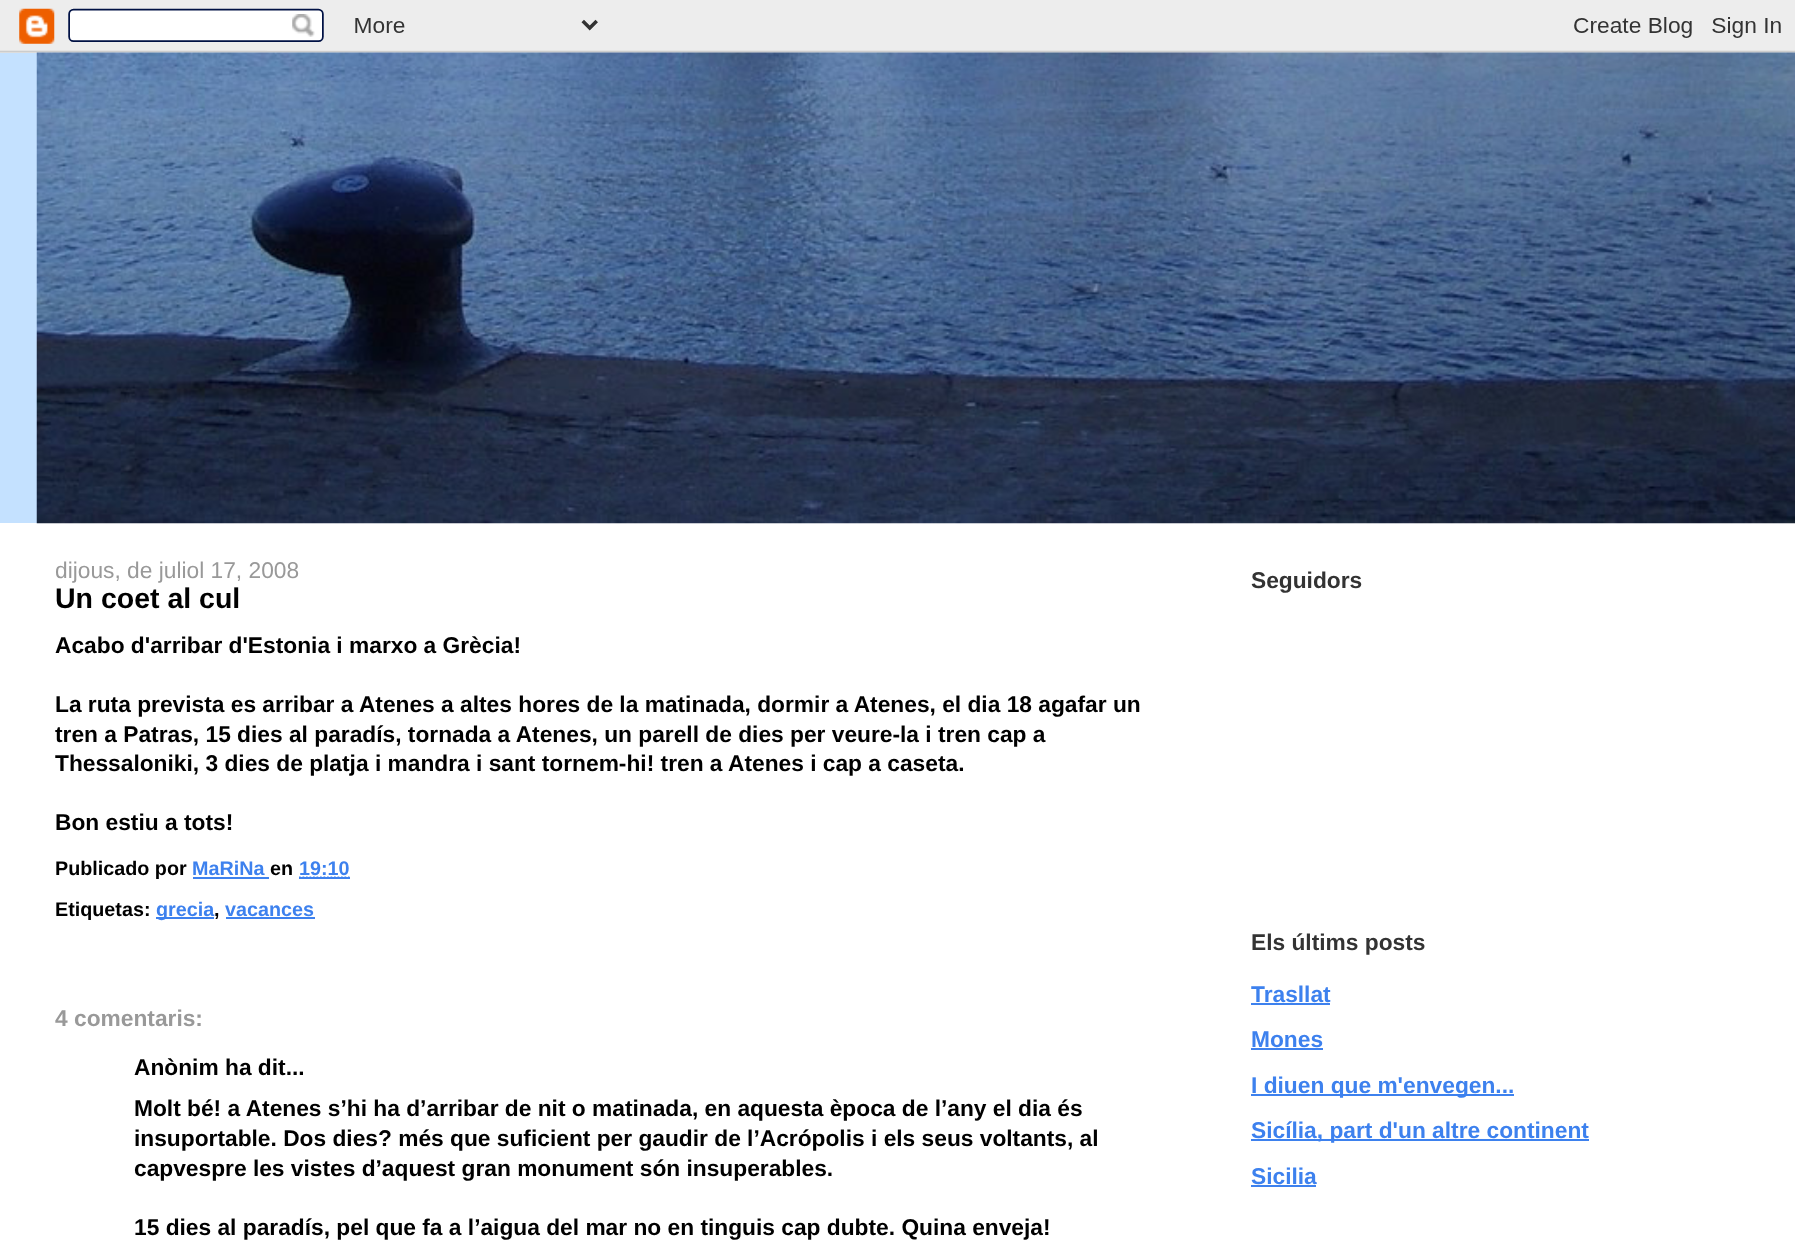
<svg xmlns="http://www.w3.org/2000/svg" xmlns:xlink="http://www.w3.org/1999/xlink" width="1795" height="1254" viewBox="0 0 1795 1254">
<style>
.cls-1{font:22.75px Liberation Sans;fill:#999999}
.cls-2{font:bold 28.5px Liberation Sans;fill:#000000}
.cls-3{font:bold 22.75px Liberation Sans;fill:#000000}
.cls-4{font:bold 19.75px Liberation Sans;fill:#000000}
.cls-5{font:bold 19.75px Liberation Sans;fill:#3d81ee}
.cls-6{font:bold 22.75px Liberation Sans;fill:#999999}
.cls-7{font:bold 22.75px Liberation Sans;fill:#333333}
.cls-8{font:bold 22.75px Liberation Sans;fill:#3d81ee}
</style>
<rect width="100%" height="100%" fill="#ffffff"/>
<image xlink:href="image0.png" x="0" y="0" width="1795" height="53"/>
<rect fill="#c4e1ff" x="0" y="53" width="37" height="470"/>
<image xlink:href="image1.png" x="36" y="52" width="1759" height="472"/>
<rect fill="#3d81ee" x="193" y="877" width="76" height="2"/>
<path fill="none" stroke="#3d81ee" stroke-width="1.8" stroke-dasharray="1.75 1.75" d="M299 877.5H349.5"/>
<rect fill="#3d81ee" x="299" y="877" width="51" height="2"/>
<rect fill="#3d81ee" x="156" y="917" width="58" height="2"/>
<rect fill="#3d81ee" x="226" y="917" width="89" height="2"/>
<rect fill="#3d81ee" x="1251" y="1003" width="79" height="2"/>
<rect fill="#3d81ee" x="1251" y="1048" width="72" height="2"/>
<rect fill="#3d81ee" x="1251" y="1094" width="263" height="2"/>
<rect fill="#3d81ee" x="1251" y="1139" width="338" height="2"/>
<rect fill="#3d81ee" x="1251" y="1185" width="65" height="2"/>
<text class="cls-1" x="55" y="578">dijous, de juliol 17, 2008</text>
<text class="cls-2" x="55" y="608">Un coet al cul</text>
<text class="cls-3" x="55" y="653">Acabo d'arribar d'Estonia i marxo a Grècia!</text>
<text class="cls-3"><tspan x="55" y="712">La ruta prevista es arribar a Atenes a altes hores de la matinada, dormir a Atenes, el dia 18 agafar un</tspan><tspan x="55" y="742">tren a Patras, 15 dies al paradís, tornada a Atenes, un parell de dies per veure-la i tren cap a</tspan><tspan x="55" y="771">Thessaloniki, 3 dies de platja i mandra i sant tornem-hi! tren a Atenes i cap a caseta.</tspan></text>
<text class="cls-3" x="55" y="830">Bon estiu a tots!</text>
<text class="cls-4" x="55" y="875">Publicado por</text>
<text class="cls-5" x="192" y="875">MaRiNa</text>
<text class="cls-4" x="270" y="875">en</text>
<text class="cls-5" x="299" y="875">19:10</text>
<text class="cls-4" x="55" y="916">Etiquetas:</text>
<text class="cls-5" x="156" y="916">grecia</text>
<text class="cls-4" x="214" y="916">,</text>
<text class="cls-5" x="225" y="916">vacances</text>
<text class="cls-6" x="55" y="1026">4 comentaris:</text>
<text class="cls-3"><tspan x="134" y="1075">Anònim ha dit...</tspan><tspan x="134" y="1116">Molt bé! a Atenes s’hi ha d’arribar de nit o matinada, en aquesta època de l’any el dia és</tspan><tspan x="134" y="1146">insuportable. Dos dies? més que suficient per gaudir de l’Acrópolis i els seus voltants, al</tspan><tspan x="134" y="1176">capvespre les vistes d’aquest gran monument són insuperables.</tspan></text>
<text class="cls-3" x="134" y="1235">15 dies al paradís, pel que fa a l’aigua del mar no en tinguis cap dubte. Quina enveja!</text>
<text class="cls-7" x="1251" y="588">Seguidors</text>
<text class="cls-7" x="1251" y="950">Els últims posts</text>
<text class="cls-8"><tspan x="1251" y="1002">Trasllat</tspan><tspan x="1251" y="1047">Mones</tspan></text>
<text class="cls-8"><tspan x="1251" y="1093">I diuen que m'envegen...</tspan><tspan x="1251" y="1138">Sicília, part d'un altre continent</tspan></text>
<text class="cls-8" x="1251" y="1184">Sicilia</text>
</svg>
